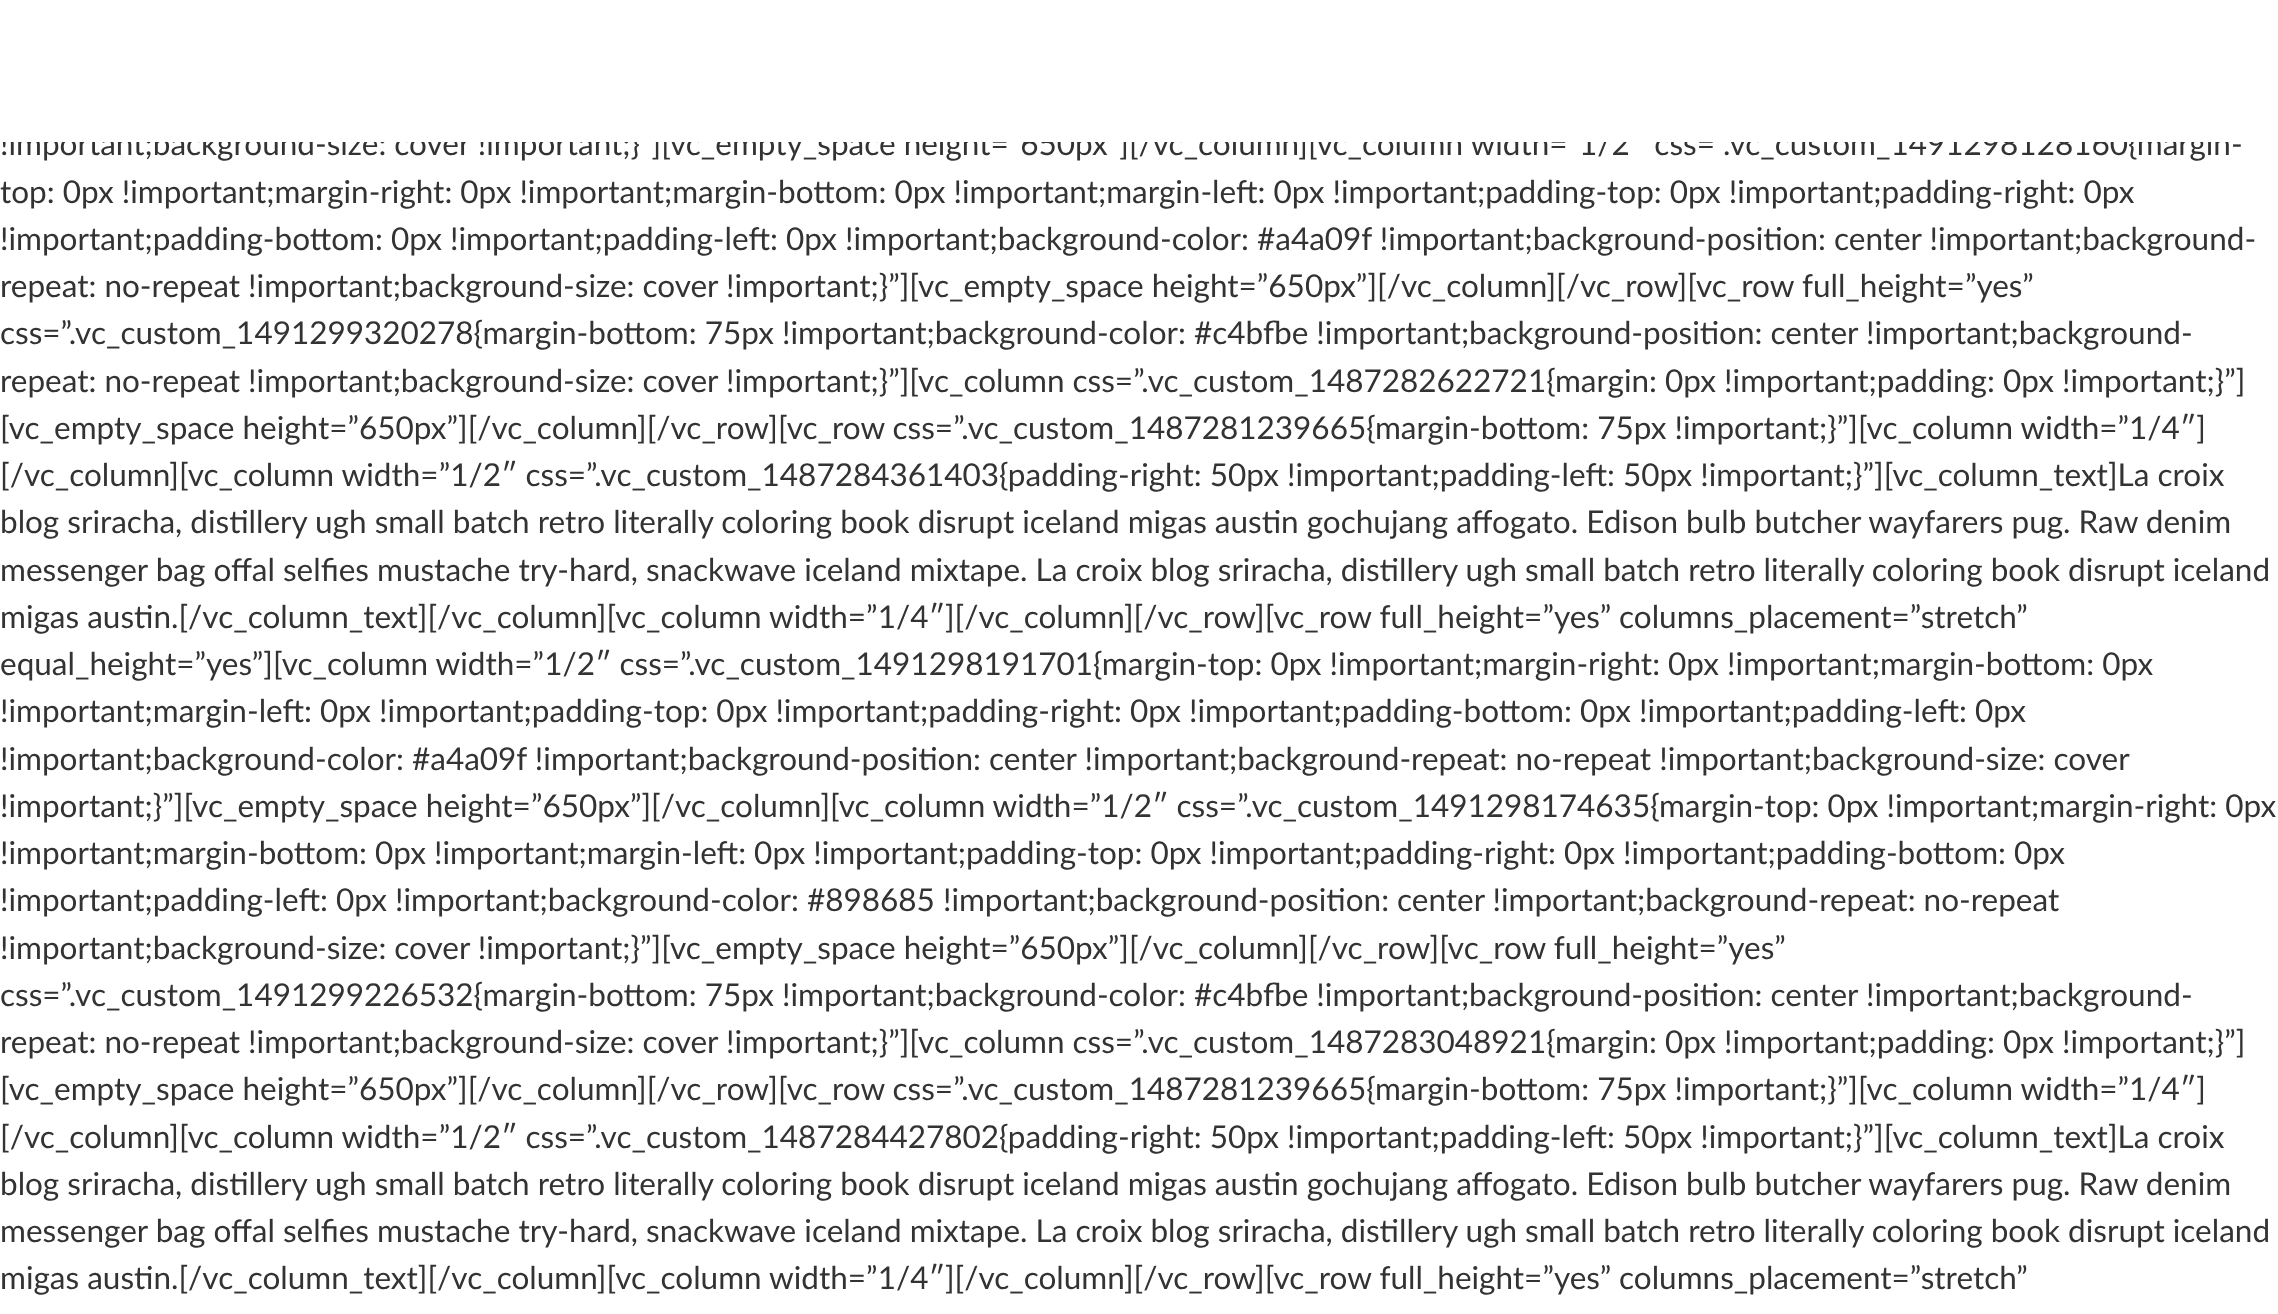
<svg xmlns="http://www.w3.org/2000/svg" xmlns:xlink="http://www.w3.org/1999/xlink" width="2278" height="1314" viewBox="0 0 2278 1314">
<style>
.cls-1{font:31.5px Lato;fill:#333333}
</style>
<rect width="100%" height="100%" fill="#ffffff"/>
<text class="cls-1"><tspan x="0" y="155">!important;background-size: cover !important;}”][vc_empty_space height=”650px”][/vc_column][vc_column width=”1/2″ css=”.vc_custom_1491298128160{margin-</tspan><tspan x="0" y="203">top: 0px !important;margin-right: 0px !important;margin-bottom: 0px !important;margin-left: 0px !important;padding-top: 0px !important;padding-right: 0px</tspan><tspan x="0" y="250">!important;padding-bottom: 0px !important;padding-left: 0px !important;background-color: #a4a09f !important;background-position: center !important;background-</tspan><tspan x="0" y="297">repeat: no-repeat !important;background-size: cover !important;}”][vc_empty_space height=”650px”][/vc_column][/vc_row][vc_row full_height=”yes”</tspan><tspan x="0" y="344">css=”.vc_custom_1491299320278{margin-bottom: 75px !important;background-color: #c4bfbe !important;background-position: center !important;background-</tspan><tspan x="0" y="392">repeat: no-repeat !important;background-size: cover !important;}”][vc_column css=”.vc_custom_1487282622721{margin: 0px !important;padding: 0px !important;}”]</tspan><tspan x="0" y="439">[vc_empty_space height=”650px”][/vc_column][/vc_row][vc_row css=”.vc_custom_1487281239665{margin-bottom: 75px !important;}”][vc_column width=”1/4″]</tspan><tspan x="0" y="486">[/vc_column][vc_column width=”1/2″ css=”.vc_custom_1487284361403{padding-right: 50px !important;padding-left: 50px !important;}”][vc_column_text]La croix</tspan><tspan x="0" y="533">blog sriracha, distillery ugh small batch retro literally coloring book disrupt iceland migas austin gochujang affogato. Edison bulb butcher wayfarers pug. Raw denim</tspan><tspan x="0" y="581">messenger bag offal selfies mustache try-hard, snackwave iceland mixtape. La croix blog sriracha, distillery ugh small batch retro literally coloring book disrupt iceland</tspan><tspan x="0" y="628">migas austin.[/vc_column_text][/vc_column][vc_column width=”1/4″][/vc_column][/vc_row][vc_row full_height=”yes” columns_placement=”stretch”</tspan><tspan x="0" y="675">equal_height=”yes”][vc_column width=”1/2″ css=”.vc_custom_1491298191701{margin-top: 0px !important;margin-right: 0px !important;margin-bottom: 0px</tspan><tspan x="0" y="722">!important;margin-left: 0px !important;padding-top: 0px !important;padding-right: 0px !important;padding-bottom: 0px !important;padding-left: 0px</tspan><tspan x="0" y="770">!important;background-color: #a4a09f !important;background-position: center !important;background-repeat: no-repeat !important;background-size: cover</tspan><tspan x="0" y="817">!important;}”][vc_empty_space height=”650px”][/vc_column][vc_column width=”1/2″ css=”.vc_custom_1491298174635{margin-top: 0px !important;margin-right: 0px</tspan><tspan x="0" y="864">!important;margin-bottom: 0px !important;margin-left: 0px !important;padding-top: 0px !important;padding-right: 0px !important;padding-bottom: 0px</tspan><tspan x="0" y="911">!important;padding-left: 0px !important;background-color: #898685 !important;background-position: center !important;background-repeat: no-repeat</tspan><tspan x="0" y="959">!important;background-size: cover !important;}”][vc_empty_space height=”650px”][/vc_column][/vc_row][vc_row full_height=”yes”</tspan><tspan x="0" y="1006">css=”.vc_custom_1491299226532{margin-bottom: 75px !important;background-color: #c4bfbe !important;background-position: center !important;background-</tspan><tspan x="0" y="1053">repeat: no-repeat !important;background-size: cover !important;}”][vc_column css=”.vc_custom_1487283048921{margin: 0px !important;padding: 0px !important;}”]</tspan><tspan x="0" y="1100">[vc_empty_space height=”650px”][/vc_column][/vc_row][vc_row css=”.vc_custom_1487281239665{margin-bottom: 75px !important;}”][vc_column width=”1/4″]</tspan><tspan x="0" y="1148">[/vc_column][vc_column width=”1/2″ css=”.vc_custom_1487284427802{padding-right: 50px !important;padding-left: 50px !important;}”][vc_column_text]La croix</tspan><tspan x="0" y="1195">blog sriracha, distillery ugh small batch retro literally coloring book disrupt iceland migas austin gochujang affogato. Edison bulb butcher wayfarers pug. Raw denim</tspan><tspan x="0" y="1242">messenger bag offal selfies mustache try-hard, snackwave iceland mixtape. La croix blog sriracha, distillery ugh small batch retro literally coloring book disrupt iceland</tspan><tspan x="0" y="1289">migas austin.[/vc_column_text][/vc_column][vc_column width=”1/4″][/vc_column][/vc_row][vc_row full_height=”yes” columns_placement=”stretch”</tspan></text>
<rect fill="#ffffff" x="2" y="129" width="2227" height="13"/>
</svg>
